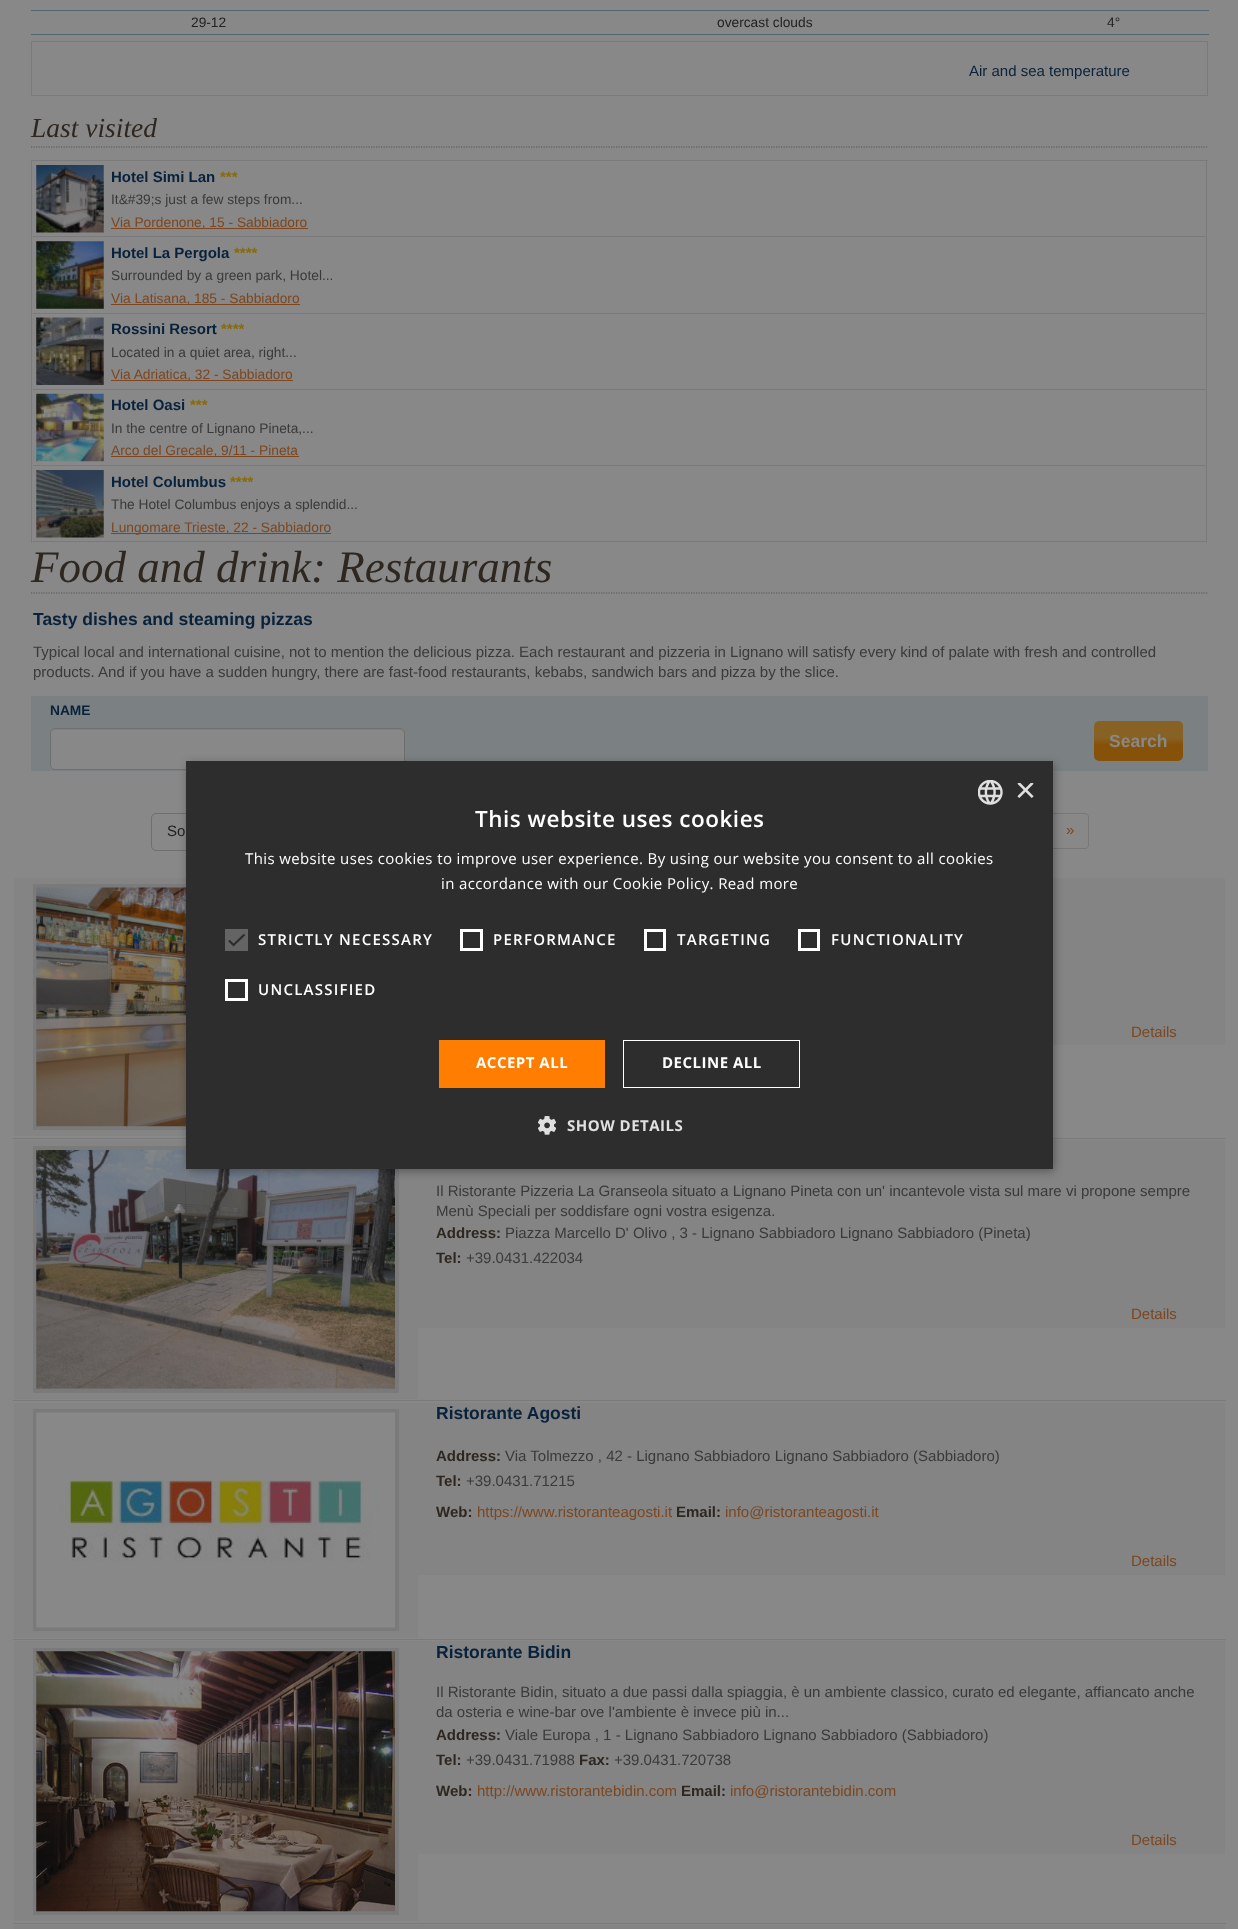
<svg xmlns="http://www.w3.org/2000/svg" xmlns:xlink="http://www.w3.org/1999/xlink" width="1238" height="1929" viewBox="0 0 1238 1929">
<style>
.cls-1{font:13.75px Liberation Sans;fill:#222222}
.cls-2{font:15px Liberation Sans;fill:#09223c}
.cls-3{font:italic 27.5px Liberation Serif;fill:#2e2720}
.cls-4{font:bold 15px Liberation Sans;fill:#09223c}
.cls-5{font:bold 15px Liberation Sans;fill:#886b09}
.cls-6{font:13.75px Liberation Sans;fill:#3a3a3a}
.cls-7{font:13.75px Liberation Sans;fill:#7c4720}
.cls-8{font:italic 45px Liberation Serif;fill:#2e2720}
.cls-9{font:bold 17.5px Liberation Sans;fill:#09223c}
.cls-10{font:15px Liberation Sans;fill:#3a3a3a}
.cls-11{font:bold 13.75px Liberation Sans;fill:#09223c}
.cls-12{font:bold 17.5px Liberation Sans;fill:#888888}
.cls-13{font:15px Liberation Sans;fill:#222222}
.cls-14{font:15px Liberation Sans;fill:#7c4720}
.cls-15{font:bold 15px Liberation Sans;fill:#2e2720}
.cls-16{font:36px Liberation Sans;fill:#e0e0e0}
.cls-17{font:600 22.5px Open Sans;letter-spacing:0.5px;fill:#ffffff}
.cls-18{font:15px Open Sans;letter-spacing:0.38px;fill:#ffffff}
.cls-19{font:600 15px Open Sans;letter-spacing:1.25px;fill:#ffffff}
.cls-20{font:bold 15px Open Sans;letter-spacing:0.5px;fill:#ffffff}
.cls-21{font:bold 15px Open Sans;letter-spacing:0.5px;fill:#e0e0e0}
</style>
<defs>
<linearGradient id="g1" gradientUnits="userSpaceOnUse" x1="1138" y1="721" x2="1138" y2="761"><stop offset="0" stop-color="#886224"/><stop offset="0.42" stop-color="#886224"/><stop offset="0.59" stop-color="#865209"/><stop offset="1" stop-color="#865209"/></linearGradient>
<clipPath id="clip1"><rect x="1015" y="783" width="19" height="18"/></clipPath>
</defs>
<rect width="100%" height="100%" fill="#888888"/>
<rect fill="#506570" x="31" y="10" width="1178" height="1"/>
<rect fill="#506570" x="31" y="34" width="1178" height="1"/>
<rect fill="none" stroke="#7a7a7a" x="31.5" y="41.5" width="1176" height="54"/>
<path fill="none" stroke="#565656" stroke-width="1.2" stroke-dasharray="1.25 1.25" d="M31 147H1207.5"/>
<rect fill="#7a7a7a" x="31" y="160" width="1177" height="1"/>
<rect fill="#7a7a7a" x="1206" y="160" width="1" height="383"/>
<rect fill="#7a7a7a" x="31" y="160" width="1" height="383"/>
<rect fill="#7a7a7a" x="33" y="236" width="1173" height="1"/>
<image xlink:href="image0.png" x="36" y="165" width="68" height="68"/>
<rect fill="#7c4720" x="111" y="228" width="197" height="1"/>
<rect fill="#7a7a7a" x="33" y="313" width="1173" height="1"/>
<image xlink:href="image1.png" x="36" y="241" width="68" height="68"/>
<rect fill="#7c4720" x="111" y="304" width="189" height="1"/>
<rect fill="#7a7a7a" x="33" y="389" width="1173" height="1"/>
<image xlink:href="image2.png" x="36" y="317" width="68" height="68"/>
<rect fill="#7c4720" x="111" y="380" width="182" height="1"/>
<rect fill="#7a7a7a" x="33" y="465" width="1173" height="1"/>
<image xlink:href="image3.png" x="36" y="393" width="68" height="69"/>
<rect fill="#7c4720" x="111" y="456" width="188" height="1"/>
<rect fill="#7a7a7a" x="33" y="541" width="1173" height="1"/>
<image xlink:href="image4.png" x="36" y="470" width="68" height="68"/>
<rect fill="#7c4720" x="111" y="533" width="220" height="1"/>
<path fill="none" stroke="#565656" stroke-width="1.2" stroke-dasharray="1.25 1.25" d="M31 593H1207.5"/>
<rect fill="#7b8182" x="31" y="696" width="1177" height="75"/>
<rect fill="#888888" x="50" y="728" width="355" height="42" rx="5"/>
<path fill="#7f7f7f" d="M55 730H400C402 730 404 732 404 734C404 731 403 729 400 729H54L52 731L51 734C51 732 53 730 55 730Z"/>
<rect fill="none" stroke="#6f6f6f" x="50.5" y="728.5" width="354" height="41" rx="4.5"/>
<rect fill="url(#g1)" x="1094" y="721" width="89" height="40" rx="5"/>
<rect fill="none" stroke="#6f6f6f" x="151.5" y="813.5" width="183" height="37" rx="4.5"/>
<path fill="none" stroke="#777777" d="M1048.5 813.5H1085C1087 813.5 1088.5 815 1088.5 817V845C1088.5 847 1087 848.5 1085 848.5H1048.5Z"/>
<rect fill="#7a7a7a" x="13" y="1138" width="1213" height="1"/>
<rect fill="#848484" x="14" y="878" width="172" height="258"/>
<rect fill="none" stroke="#7a7a7a" stroke-width="4" x="35" y="886" width="362" height="242"/>
<image xlink:href="image5.png" x="36" y="887" width="150" height="240"/>
<rect fill="#848484" x="1053" y="878" width="172" height="167"/>
<rect fill="#7a7a7a" x="13" y="1400" width="1213" height="1"/>
<rect fill="#848484" x="14" y="1140" width="404" height="259"/>
<rect fill="none" stroke="#7a7a7a" stroke-width="4" x="35" y="1148" width="362" height="243"/>
<image xlink:href="image6.png" x="36" y="1150" width="359" height="239"/>
<rect fill="#848484" x="418" y="1140" width="807" height="188"/>
<rect fill="#7a7a7a" x="13" y="1639" width="1213" height="1"/>
<rect fill="#848484" x="14" y="1403" width="404" height="235"/>
<rect fill="none" stroke="#7a7a7a" stroke-width="4" x="35" y="1411" width="362" height="218"/>
<image xlink:href="image7.png" x="36" y="1412" width="359" height="216"/>
<rect fill="#848484" x="418" y="1403" width="807" height="172"/>
<rect fill="#7a7a7a" x="13" y="1923" width="1213" height="1"/>
<rect fill="#848484" x="14" y="1641" width="404" height="280"/>
<rect fill="none" stroke="#7a7a7a" stroke-width="4" x="35" y="1650" width="362" height="263"/>
<image xlink:href="image8.png" x="36" y="1651" width="359" height="261"/>
<rect fill="#848484" x="418" y="1641" width="807" height="213"/>
<rect fill="#848484" x="14" y="1925" width="1211" height="4"/>
<rect fill="#000000" fill-opacity="0.35" filter="blur(5px)" x="188" y="764" width="866" height="407"/>
<rect fill="#2d2d2d" x="186" y="761" width="867" height="408"/>
<image xlink:href="image9.png" x="978" y="780" width="25" height="25"/>
<rect fill="#646464" x="225" y="929" width="23" height="22"/>
<path fill="none" stroke="#2d2d2d" stroke-width="2.3" d="M229 940.5L233.5 945L244.5 934.5"/>
<rect fill="none" stroke="#ffffff" stroke-width="3" x="461.5" y="930.5" width="20" height="19"/>
<rect fill="none" stroke="#ffffff" stroke-width="3" x="645.5" y="930.5" width="19" height="19"/>
<rect fill="none" stroke="#ffffff" stroke-width="3" x="799.5" y="930.5" width="19" height="19"/>
<rect fill="none" stroke="#ffffff" stroke-width="3" x="226.5" y="980.5" width="20" height="19"/>
<rect fill="#ff7d00" x="439" y="1040" width="166" height="48"/>
<rect fill="none" stroke="#ffffff" x="623.5" y="1040.5" width="176" height="47"/>
<image xlink:href="image10.png" x="538" y="1116" width="18" height="19"/>
<text class="cls-1" x="191" y="27">29-12</text>
<text class="cls-1" x="717" y="27">overcast clouds</text>
<text class="cls-1" x="1107" y="27">4°</text>
<text class="cls-2" x="969" y="76">Air and sea temperature</text>
<text class="cls-3" x="31" y="137">Last visited</text>
<text class="cls-4" x="111" y="182">Hotel Simi Lan</text>
<text class="cls-5" x="220" y="182">***</text>
<text class="cls-6" x="111" y="204">It&amp;#39;s just a few steps from...</text>
<text class="cls-7" x="111" y="227">Via Pordenone, 15 - Sabbiadoro</text>
<text class="cls-4" x="111" y="258">Hotel La Pergola</text>
<text class="cls-5" x="234" y="258">****</text>
<text class="cls-6" x="111" y="280">Surrounded by a green park, Hotel...</text>
<text class="cls-7" x="111" y="303">Via Latisana, 185 - Sabbiadoro</text>
<text class="cls-4" x="111" y="334">Rossini Resort</text>
<text class="cls-5" x="221" y="334">****</text>
<text class="cls-6" x="111" y="357">Located in a quiet area, right...</text>
<text class="cls-7" x="111" y="379">Via Adriatica, 32 - Sabbiadoro</text>
<text class="cls-4" x="111" y="410">Hotel Oasi</text>
<text class="cls-5" x="190" y="410">***</text>
<text class="cls-6" x="111" y="433">In the centre of Lignano Pineta,...</text>
<text class="cls-7" x="111" y="455">Arco del Grecale, 9/11 - Pineta</text>
<text class="cls-4" x="111" y="487">Hotel Columbus</text>
<text class="cls-5" x="230" y="487">****</text>
<text class="cls-6" x="111" y="509">The Hotel Columbus enjoys a splendid...</text>
<text class="cls-7" x="111" y="532">Lungomare Trieste, 22 - Sabbiadoro</text>
<text class="cls-8" x="31" y="582">Food and drink: Restaurants</text>
<text class="cls-9" x="33" y="625">Tasty dishes and steaming pizzas</text>
<text class="cls-10"><tspan x="33" y="657">Typical local and international cuisine, not to mention the delicious pizza. Each restaurant and pizzeria in Lignano will satisfy every kind of palate with fresh and controlled</tspan><tspan x="33" y="677">products. And if you have a sudden hungry, there are fast-food restaurants, kebabs, sandwich bars and pizza by the slice.</tspan></text>
<text class="cls-11" x="50" y="715">NAME</text>
<text class="cls-12" x="1109" y="747">Search</text>
<text class="cls-13" x="167" y="836">So</text>
<text class="cls-14" x="1066" y="835">»</text>
<text class="cls-14" x="1131" y="1037">Details</text>
<text class="cls-10"><tspan x="436" y="1196">Il Ristorante Pizzeria La Granseola situato a Lignano Pineta con un' incantevole vista sul mare vi propone sempre</tspan><tspan x="436" y="1216">Menù Speciali per soddisfare ogni vostra esigenza.</tspan></text>
<text class="cls-15" x="436" y="1238">Address:</text>
<text class="cls-10" x="505" y="1238">Piazza Marcello D' Olivo , 3 - Lignano Sabbiadoro Lignano Sabbiadoro (Pineta)</text>
<text class="cls-15" x="436" y="1263">Tel:</text>
<text class="cls-10" x="466" y="1263">+39.0431.422034</text>
<text class="cls-14" x="1131" y="1319">Details</text>
<text class="cls-9" x="436" y="1419">Ristorante Agosti</text>
<text class="cls-15" x="436" y="1461">Address:</text>
<text class="cls-10" x="505" y="1461">Via Tolmezzo , 42 - Lignano Sabbiadoro Lignano Sabbiadoro (Sabbiadoro)</text>
<text class="cls-15" x="436" y="1486">Tel:</text>
<text class="cls-10" x="466" y="1486">+39.0431.71215</text>
<text class="cls-15" x="436" y="1517">Web:</text>
<text class="cls-14" x="477" y="1517">https://www.ristoranteagosti.it</text>
<text class="cls-15" x="676" y="1517">Email:</text>
<text class="cls-14" x="725" y="1517">info@ristoranteagosti.it</text>
<text class="cls-14" x="1131" y="1566">Details</text>
<text class="cls-9" x="436" y="1658">Ristorante Bidin</text>
<text class="cls-10"><tspan x="436" y="1697">Il Ristorante Bidin, situato a due passi dalla spiaggia, è un ambiente classico, curato ed elegante, affiancato anche</tspan><tspan x="436" y="1717">da osteria e wine-bar ove l'ambiente è invece più in...</tspan></text>
<text class="cls-15" x="436" y="1740">Address:</text>
<text class="cls-10" x="505" y="1740">Viale Europa , 1 - Lignano Sabbiadoro Lignano Sabbiadoro (Sabbiadoro)</text>
<text class="cls-15" x="436" y="1765">Tel:</text>
<text class="cls-10" x="466" y="1765">+39.0431.71988</text>
<text class="cls-15" x="579" y="1765">Fax:</text>
<text class="cls-10" x="614" y="1765">+39.0431.720738</text>
<text class="cls-15" x="436" y="1796">Web:</text>
<text class="cls-14" x="477" y="1796">http://www.ristorantebidin.com</text>
<text class="cls-15" x="681" y="1796">Email:</text>
<text class="cls-14" x="730" y="1796">info@ristorantebidin.com</text>
<text class="cls-14" x="1131" y="1845">Details</text>
<g clip-path="url(#clip1)">
<text class="cls-16" x="1015" y="802">×</text>
</g>
<text class="cls-17" x="475" y="827">This website uses cookies</text>
<text class="cls-18" x="245" y="864">This website uses cookies to improve user experience. By using our website you consent to all cookies</text>
<text class="cls-18" x="441" y="889">in accordance with our Cookie Policy. Read more</text>
<text class="cls-19" x="258" y="945">STRICTLY NECESSARY</text>
<text class="cls-19" x="493" y="945">PERFORMANCE</text>
<text class="cls-19" x="677" y="945">TARGETING</text>
<text class="cls-19" x="831" y="945">FUNCTIONALITY</text>
<text class="cls-19" x="258" y="995">UNCLASSIFIED</text>
<text class="cls-20" x="476" y="1068">ACCEPT ALL</text>
<text class="cls-20" x="662" y="1068">DECLINE ALL</text>
<text class="cls-21" x="567" y="1131">SHOW DETAILS</text>
</svg>
